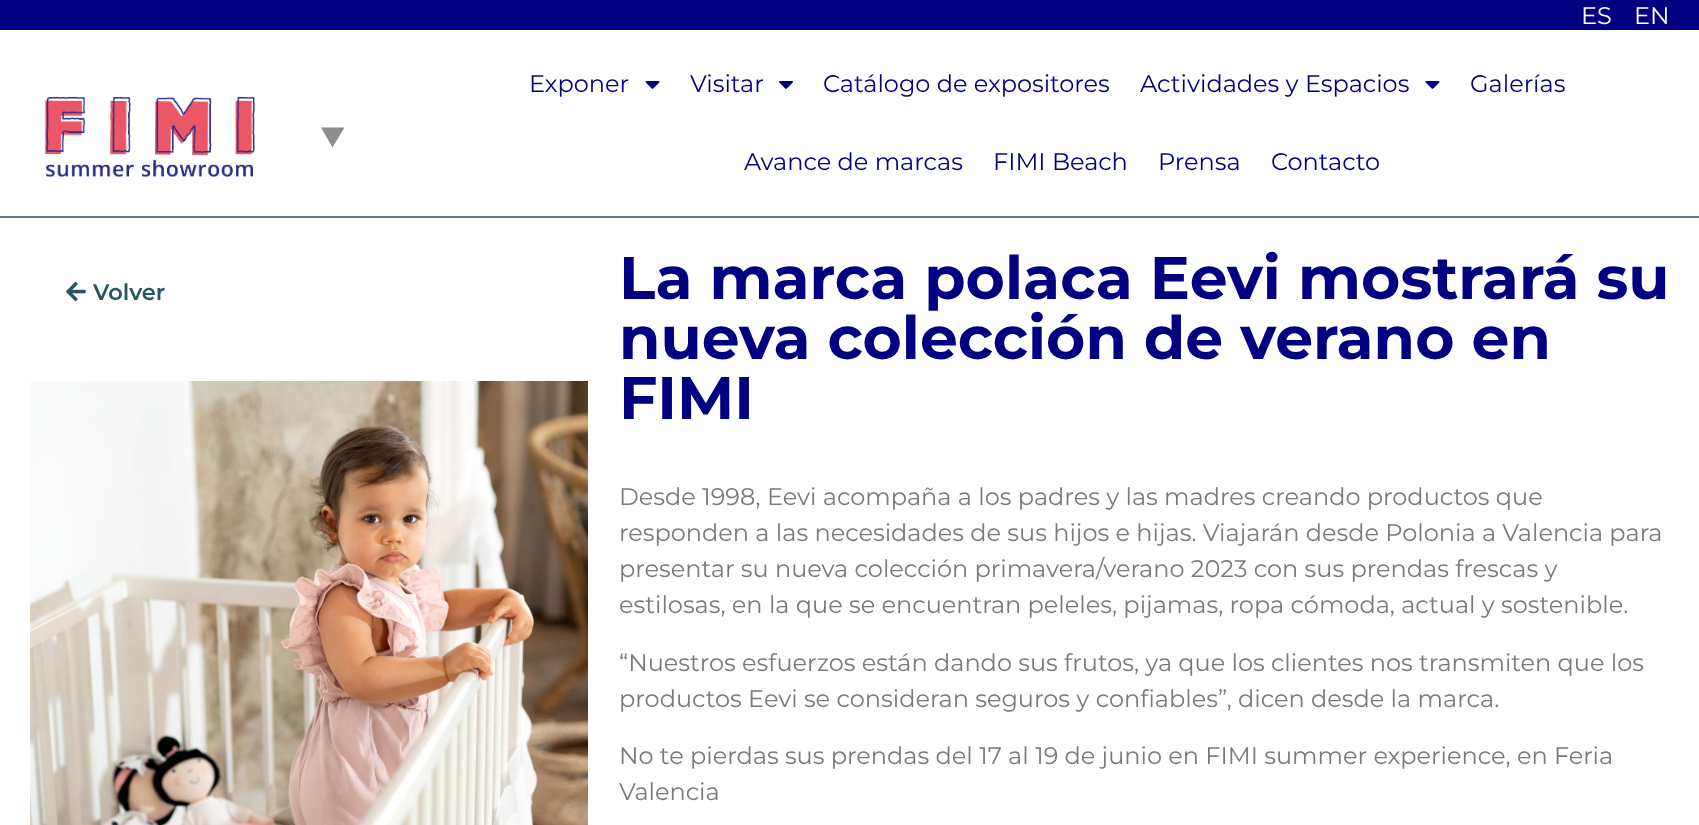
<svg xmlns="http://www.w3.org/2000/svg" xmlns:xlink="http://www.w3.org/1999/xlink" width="1699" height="825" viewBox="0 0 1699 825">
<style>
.cls-1{font:24px Montserrat;fill:#ffffff}
.cls-2{font:24px Montserrat;fill:#000080}
.cls-3{font:600 22.5px Montserrat;fill:#275561}
.cls-4{font:bold 60px Montserrat;fill:#000080}
.cls-5{font:24px Montserrat;fill:#7a7a7a}
</style>
<rect width="100%" height="100%" fill="#ffffff"/>
<rect fill="#000080" x="0" y="0" width="1699" height="30"/>
<rect fill="#567c8d" x="0" y="216" width="1699" height="2"/>
<image xlink:href="image0.png" x="44" y="96" width="212" height="81"/>
<path fill="#8c8e8f" d="M332.5 147.5L344.5 127.5H321Z"/>
<image xlink:href="image1.png" x="645" y="81" width="15" height="8"/>
<image xlink:href="image2.png" x="779" y="81" width="14" height="8"/>
<image xlink:href="image1.png" x="1425" y="81" width="15" height="8"/>
<image xlink:href="image3.png" x="66" y="282" width="20" height="20"/>
<image xlink:href="image4.png" x="30" y="381" width="558" height="444"/>
<text class="cls-1" x="1581" y="24">ES</text>
<text class="cls-1" x="1634" y="24">EN</text>
<text class="cls-2" x="529" y="92">Exponer</text>
<text class="cls-2" x="690" y="92">Visitar</text>
<text class="cls-2" x="823" y="92">Catálogo de expositores</text>
<text class="cls-2" x="1140" y="92">Actividades y Espacios</text>
<text class="cls-2" x="1470" y="92">Galerías</text>
<text class="cls-2" x="744" y="170">Avance de marcas</text>
<text class="cls-2" x="993" y="170">FIMI Beach</text>
<text class="cls-2" x="1158" y="170">Prensa</text>
<text class="cls-2" x="1271" y="170">Contacto</text>
<text class="cls-3" x="93" y="300">Volver</text>
<text class="cls-4"><tspan x="619" y="299">La marca polaca Eevi mostrará su</tspan><tspan x="619" y="359">nueva colección de verano en</tspan><tspan x="619" y="419">FIMI</tspan></text>
<text class="cls-5"><tspan x="619" y="505">Desde 1998, Eevi acompaña a los padres y las madres creando productos que</tspan><tspan x="619" y="541">responden a las necesidades de sus hijos e hijas. Viajarán desde Polonia a Valencia para</tspan><tspan x="619" y="577">presentar su nueva colección primavera/verano 2023 con sus prendas frescas y</tspan><tspan x="619" y="613">estilosas, en la que se encuentran peleles, pijamas, ropa cómoda, actual y sostenible.</tspan></text>
<text class="cls-5"><tspan x="619" y="671">“Nuestros esfuerzos están dando sus frutos, ya que los clientes nos transmiten que los</tspan><tspan x="619" y="707">productos Eevi se consideran seguros y confiables”, dicen desde la marca.</tspan></text>
<text class="cls-5"><tspan x="619" y="764">No te pierdas sus prendas del 17 al 19 de junio en FIMI summer experience, en Feria</tspan><tspan x="619" y="800">Valencia</tspan></text>
</svg>
